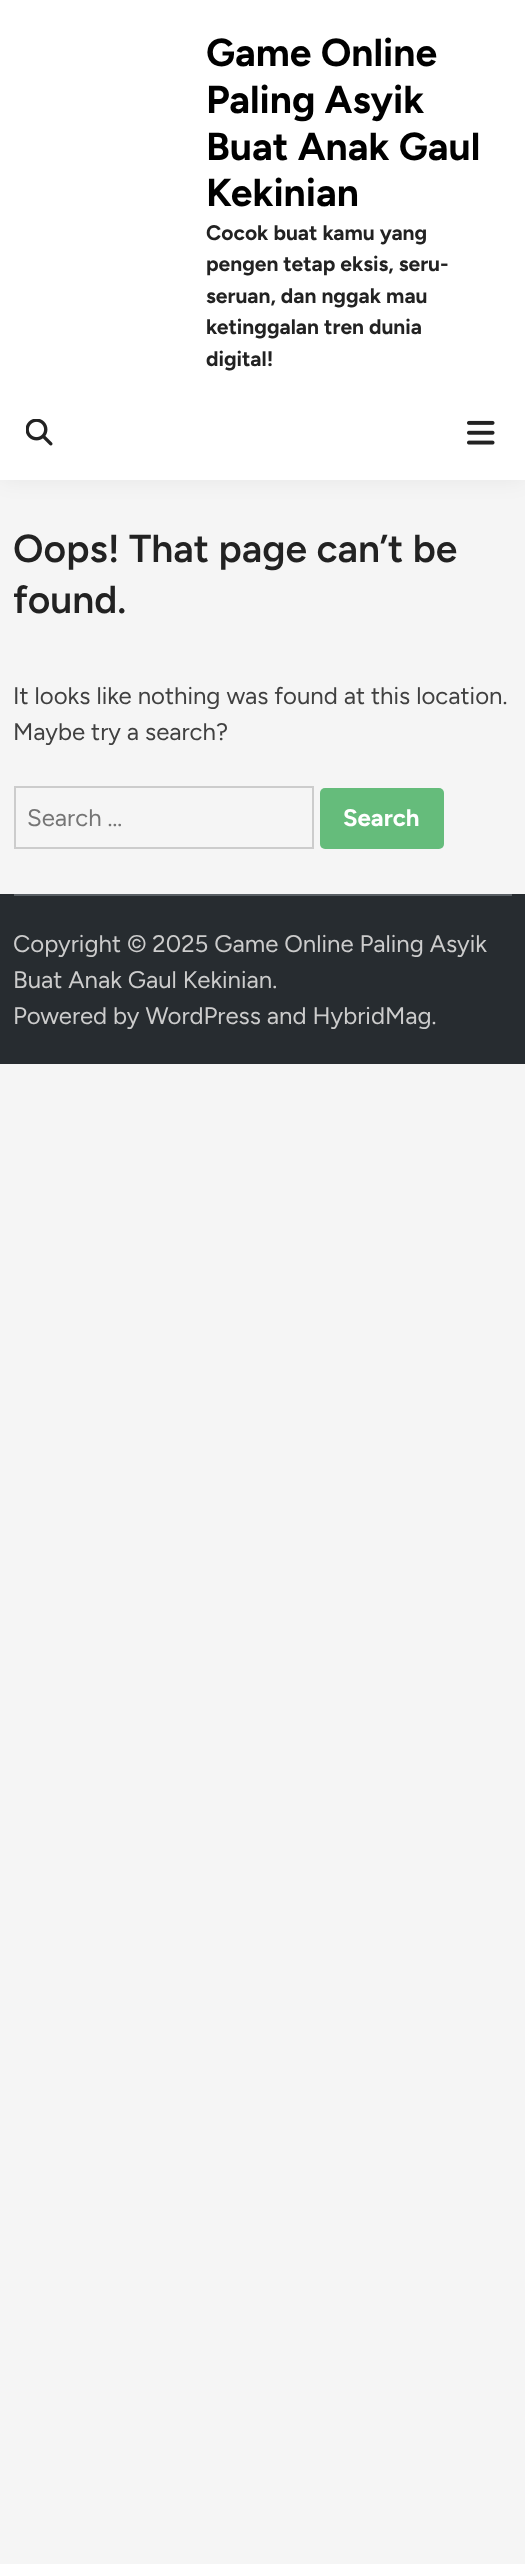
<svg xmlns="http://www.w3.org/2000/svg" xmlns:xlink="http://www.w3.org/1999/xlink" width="525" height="2564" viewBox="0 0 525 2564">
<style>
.cls-1{font:bold 39px Figtree;fill:#000000}
.cls-2{font:bold 21px Figtree;fill:#222222}
.cls-3{font:600 39px Figtree;fill:#222222}
.cls-4{font:24px Figtree;fill:#404040}
.cls-5{font:24px Figtree;fill:#757575}
.cls-6{font:bold 24px Figtree;fill:#ffffff}
.cls-7{font:24px Figtree;fill:#cccccc}
</style>
<rect width="100%" height="100%" fill="#f5f5f5"/>
<rect fill="#000000" fill-opacity="0.06" filter="blur(11px)" x="0" y="0" width="525" height="480"/>
<rect fill="#ffffff" x="0" y="0" width="525" height="480"/>
<image xlink:href="image0.png" x="26" y="419" width="27" height="27"/>
<image xlink:href="image1.png" x="467" y="420" width="28" height="25"/>
<rect fill="none" stroke="#cccccc" stroke-width="2" x="15" y="787" width="298" height="61"/>
<rect fill="#65bc7b" x="320" y="788" width="124" height="61" rx="5"/>
<rect fill="#272c30" x="0" y="894" width="525" height="170"/>
<rect fill="#595f64" x="14" y="894" width="498" height="2"/>
<text class="cls-1"><tspan x="206" y="66">Game Online</tspan><tspan x="206" y="113">Paling Asyik</tspan><tspan x="206" y="160">Buat Anak Gaul</tspan><tspan x="206" y="206">Kekinian</tspan></text>
<text class="cls-2"><tspan x="206" y="240">Cocok buat kamu yang</tspan><tspan x="206" y="271">pengen tetap eksis, seru-</tspan><tspan x="206" y="303">seruan, dan nggak mau</tspan><tspan x="206" y="334">ketinggalan tren dunia</tspan><tspan x="206" y="366">digital!</tspan></text>
<text class="cls-3"><tspan x="13" y="562">Oops! That page can’t be</tspan><tspan x="13" y="613">found.</tspan></text>
<text class="cls-4"><tspan x="13" y="704">It looks like nothing was found at this location.</tspan><tspan x="13" y="740">Maybe try a search?</tspan></text>
<text class="cls-5" x="27" y="826">Search …</text>
<text class="cls-6" x="343" y="826">Search</text>
<text class="cls-7"><tspan x="13" y="952">Copyright © 2025 Game Online Paling Asyik</tspan><tspan x="13" y="988">Buat Anak Gaul Kekinian.</tspan><tspan x="13" y="1024">Powered by WordPress and HybridMag.</tspan></text>
</svg>
